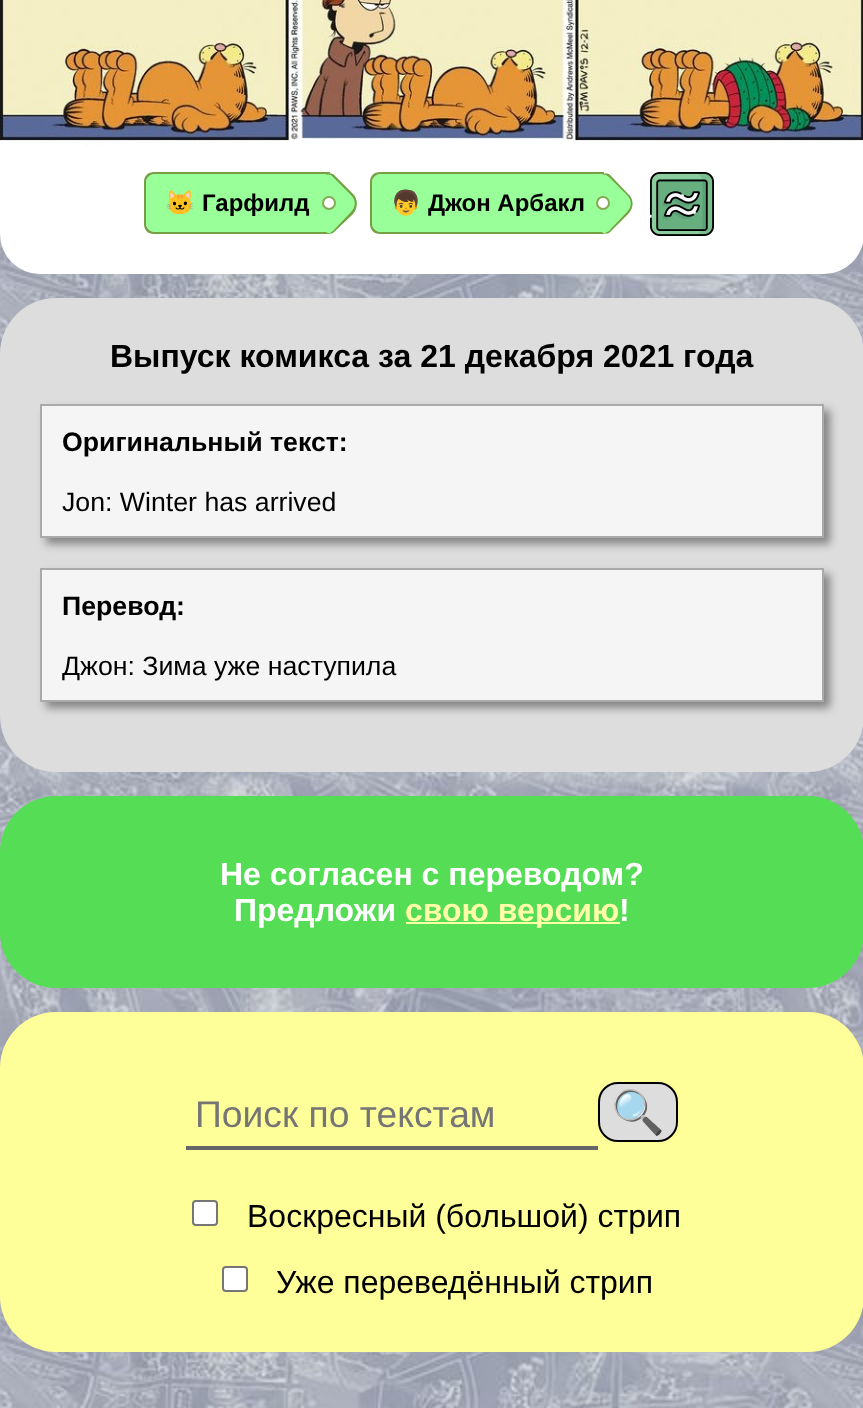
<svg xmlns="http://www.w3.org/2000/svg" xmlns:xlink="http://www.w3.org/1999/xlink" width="863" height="1408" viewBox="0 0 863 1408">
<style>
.cls-1{font:bold 24px Noto Color Emoji;fill:#000000}
.cls-2{font:bold 24px Liberation Sans;fill:#000000}
.cls-3{font:bold 32px Liberation Sans;fill:#000000}
.cls-4{font:bold 26.7px Liberation Sans;fill:#000000}
.cls-5{font:26.7px Liberation Sans;fill:#000000}
.cls-6{font:bold 32px Liberation Sans;fill:#ffffff}
.cls-7{font:bold 32px Liberation Sans;fill:#ffffaa}
.cls-8{font:37.25px Liberation Sans;fill:#757575}
.cls-9{font:43px Noto Color Emoji;fill:#000000}
.cls-10{font:32px Liberation Sans;fill:#000000}
</style>
<rect width="100%" height="100%" fill="#ffffff"/>
<image xlink:href="image0.png" x="0" y="234" width="863" height="1174"/>
<rect fill="#ffffff" x="0" y="-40" width="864" height="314" rx="40"/>
<image xlink:href="image1.png" x="0" y="0" width="863" height="146"/>
<path fill="#99ff99" d="M154 174H330V232H154C149.5 232 146 228.5 146 224V182C146 177.5 149.5 174 154 174Z"/>
<path fill="#769e42" fill-rule="evenodd" d="M154 172H330V234H154C148 234 144 230 144 224V182C144 176 148 172 154 172ZM154 174H330V232H154C150 232 146 228 146 224V182C146 178 150 174 154 174Z"/>
<path fill="#99ff99" d="M334 175L353 194C358 199 358 208 353 214L334 232C332 234 328 234 326 232L298 204L326 175C328 173 332 173 334 175Z"/>
<path fill="#769e42" fill-rule="evenodd" d="M334 175L353 194C358 199 358 208 353 214L334 232C332 234 328 234 326 232L298 204L326 175C328 173 332 173 334 175ZM333 177L351 195C356 200 356 207 351 212L333 231C331 233 328 234 326 232L298 204L326 175C328 174 331 174 333 177Z"/>
<circle fill="#ffffff" stroke="#83ab52" stroke-width="2" cx="329" cy="203" r="6"/>
<path fill="#99ff99" d="M380 174H604V232H380C375.5 232 372 228.5 372 224V182C372 177.5 375.5 174 380 174Z"/>
<path fill="#769e42" fill-rule="evenodd" d="M380 172H604V234H380C374 234 370 230 370 224V182C370 176 374 172 380 172ZM380 174H604V232H380C376 232 372 228 372 224V182C372 178 376 174 380 174Z"/>
<path fill="#99ff99" d="M610 175L628 194C634 199 634 208 628 214L610 232C608 234 604 234 602 232L573 204L602 175C604 173 608 173 610 175Z"/>
<path fill="#769e42" fill-rule="evenodd" d="M610 175L628 194C634 199 634 208 628 214L610 232C608 234 604 234 602 232L573 204L602 175C604 173 608 173 610 175ZM609 177L627 195C632 200 632 207 627 212L609 231C606 233 603 234 602 232L573 204L602 175C603 174 606 174 609 177Z"/>
<circle fill="#ffffff" stroke="#83ab52" stroke-width="2" cx="603" cy="203" r="6"/>
<image xlink:href="image2.png" x="650" y="172" width="64" height="64"/>
<rect fill="#dddddd" x="0" y="298" width="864" height="474" rx="56"/>
<rect fill="#000000" fill-opacity="0.4" filter="blur(4px)" x="46" y="410" width="784" height="134"/>
<rect fill="#f5f5f5" stroke="#aaaaaa" stroke-width="2" x="41" y="405" width="782" height="132"/>
<rect fill="#000000" fill-opacity="0.4" filter="blur(4px)" x="46" y="574" width="784" height="134"/>
<rect fill="#f5f5f5" stroke="#aaaaaa" stroke-width="2" x="41" y="569" width="782" height="132"/>
<rect fill="#55dd55" x="0" y="796" width="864" height="192" rx="56"/>
<rect fill="#ffffaa" x="406" y="922" width="214" height="2"/>
<rect fill="#ffff99" x="0" y="1012" width="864" height="340" rx="56"/>
<rect fill="#666666" x="186" y="1146" width="412" height="4"/>
<rect fill="#dddddd" stroke="#000000" stroke-width="2" x="599" y="1083" width="78" height="58" rx="19"/>
<rect fill="#ffffff" stroke="#767676" stroke-width="2" x="193" y="1201" width="24" height="24" rx="3"/>
<rect fill="#ffffff" stroke="#767676" stroke-width="2" x="223" y="1267" width="24" height="24" rx="3"/>
<text class="cls-1" x="165" y="211">🐱</text>
<text class="cls-2" x="202" y="211">Гарфилд</text>
<text class="cls-1" x="391" y="211">👦</text>
<text class="cls-2" x="428" y="211">Джон Арбакл</text>
<text class="cls-3" x="110" y="367">Выпуск комикса за 21 декабря 2021 года</text>
<text class="cls-4" x="62" y="451">Оригинальный текст:</text>
<text class="cls-5" x="62" y="511">Jon: Winter has arrived</text>
<text class="cls-4" x="62" y="615">Перевод:</text>
<text class="cls-5" x="62" y="675">Джон: Зима уже наступила</text>
<text class="cls-6" x="220" y="885">Не согласен с переводом?</text>
<text class="cls-6" x="234" y="921">Предложи</text>
<text class="cls-7" x="405" y="921">свою версию</text>
<text class="cls-6" x="619" y="921">!</text>
<text class="cls-8" x="195" y="1127">Поиск по текстам</text>
<text class="cls-9" x="611" y="1127">🔍</text>
<text class="cls-10" x="247" y="1227">Воскресный (большой) стрип</text>
<text class="cls-10" x="276" y="1293">Уже переведённый стрип</text>
</svg>
